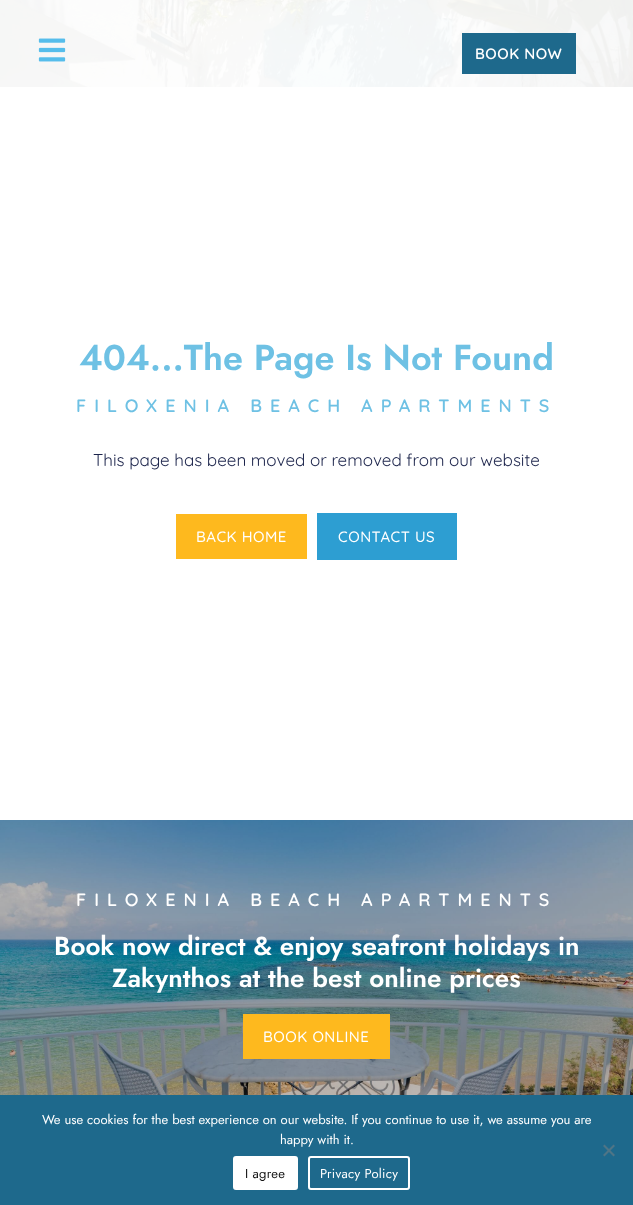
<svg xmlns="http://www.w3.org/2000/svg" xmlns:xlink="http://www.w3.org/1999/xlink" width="633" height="1205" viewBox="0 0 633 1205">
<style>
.cls-1{font:600 15px Quicksand;letter-spacing:0.5px;fill:#ffffff}
.cls-2{font:600 36px Jost;fill:#6ec1e4}
.cls-3{font:600 18px Quicksand;letter-spacing:8px;fill:#6ec1e4}
.cls-4{font:17px Quicksand;fill:#1c244b}
.cls-5{font:500 15px Quicksand;letter-spacing:0.5px;fill:#ffffff}
.cls-6{font:600 18px Quicksand;letter-spacing:8px;fill:#ffffff}
.cls-7{font:600 26px Jost;fill:#ffffff}
.cls-8{font:13px Jost;fill:#ffffff}
.cls-9{font:13px Jost;letter-spacing:0.25px;fill:#111111}
.cls-10{font:13px Jost;letter-spacing:0.25px;fill:#ffffff}
</style>
<rect width="100%" height="100%" fill="#ffffff"/>
<image xlink:href="image1.png" x="0" y="0" width="633" height="87"/>
<image xlink:href="image0.png" x="38" y="38" width="28" height="24"/>
<rect fill="#1e698c" x="462" y="33" width="114" height="41"/>
<rect fill="#feb91e" x="176" y="514" width="131" height="45"/>
<rect fill="#2d9ed2" x="317" y="513" width="140" height="47"/>
<image xlink:href="image2.png" x="0" y="820" width="633" height="275"/>
<rect fill="#feb91e" x="243" y="1014" width="147" height="45"/>
<rect fill="#1e698c" x="0" y="1095" width="633" height="110"/>
<path fill="#4f7586" d="M613.5 1144.5L615 1146L604.5 1156.5L603 1155Z"/>
<path fill="#4f7586" d="M603 1146L604.5 1144.5L615 1155L613.5 1156.5Z"/>
<rect fill="#ffffff" stroke="#ffffff" stroke-width="2" x="234" y="1157" width="63" height="32" rx="2"/>
<rect fill="none" stroke="#ffffff" stroke-width="2" x="309" y="1157" width="100" height="32" rx="2"/>
<text class="cls-1" x="475" y="59">BOOK NOW</text>
<text class="cls-2" x="79" y="370">404...The Page Is Not Found</text>
<text class="cls-3" x="76" y="412">FILOXENIA BEACH APARTMENTS</text>
<text class="cls-4" x="93" y="466">This page has been moved or removed from our website</text>
<text class="cls-5" x="196" y="542">BACK HOME</text>
<text class="cls-5" x="338" y="542">CONTACT US</text>
<text class="cls-6" x="76" y="906">FILOXENIA BEACH APARTMENTS</text>
<text class="cls-7" x="54" y="955">Book now direct &amp; enjoy seafront holidays in</text>
<text class="cls-7" x="112" y="987">Zakynthos at the best online prices</text>
<text class="cls-5" x="263" y="1042">BOOK ONLINE</text>
<text class="cls-8" x="42" y="1124">We use cookies for the best experience on our website. If you continue to use it, we assume you are</text>
<text class="cls-8" x="280" y="1144">happy with it.</text>
<text class="cls-9" x="245" y="1178">I agree</text>
<text class="cls-10" x="320" y="1178">Privacy Policy</text>
</svg>
